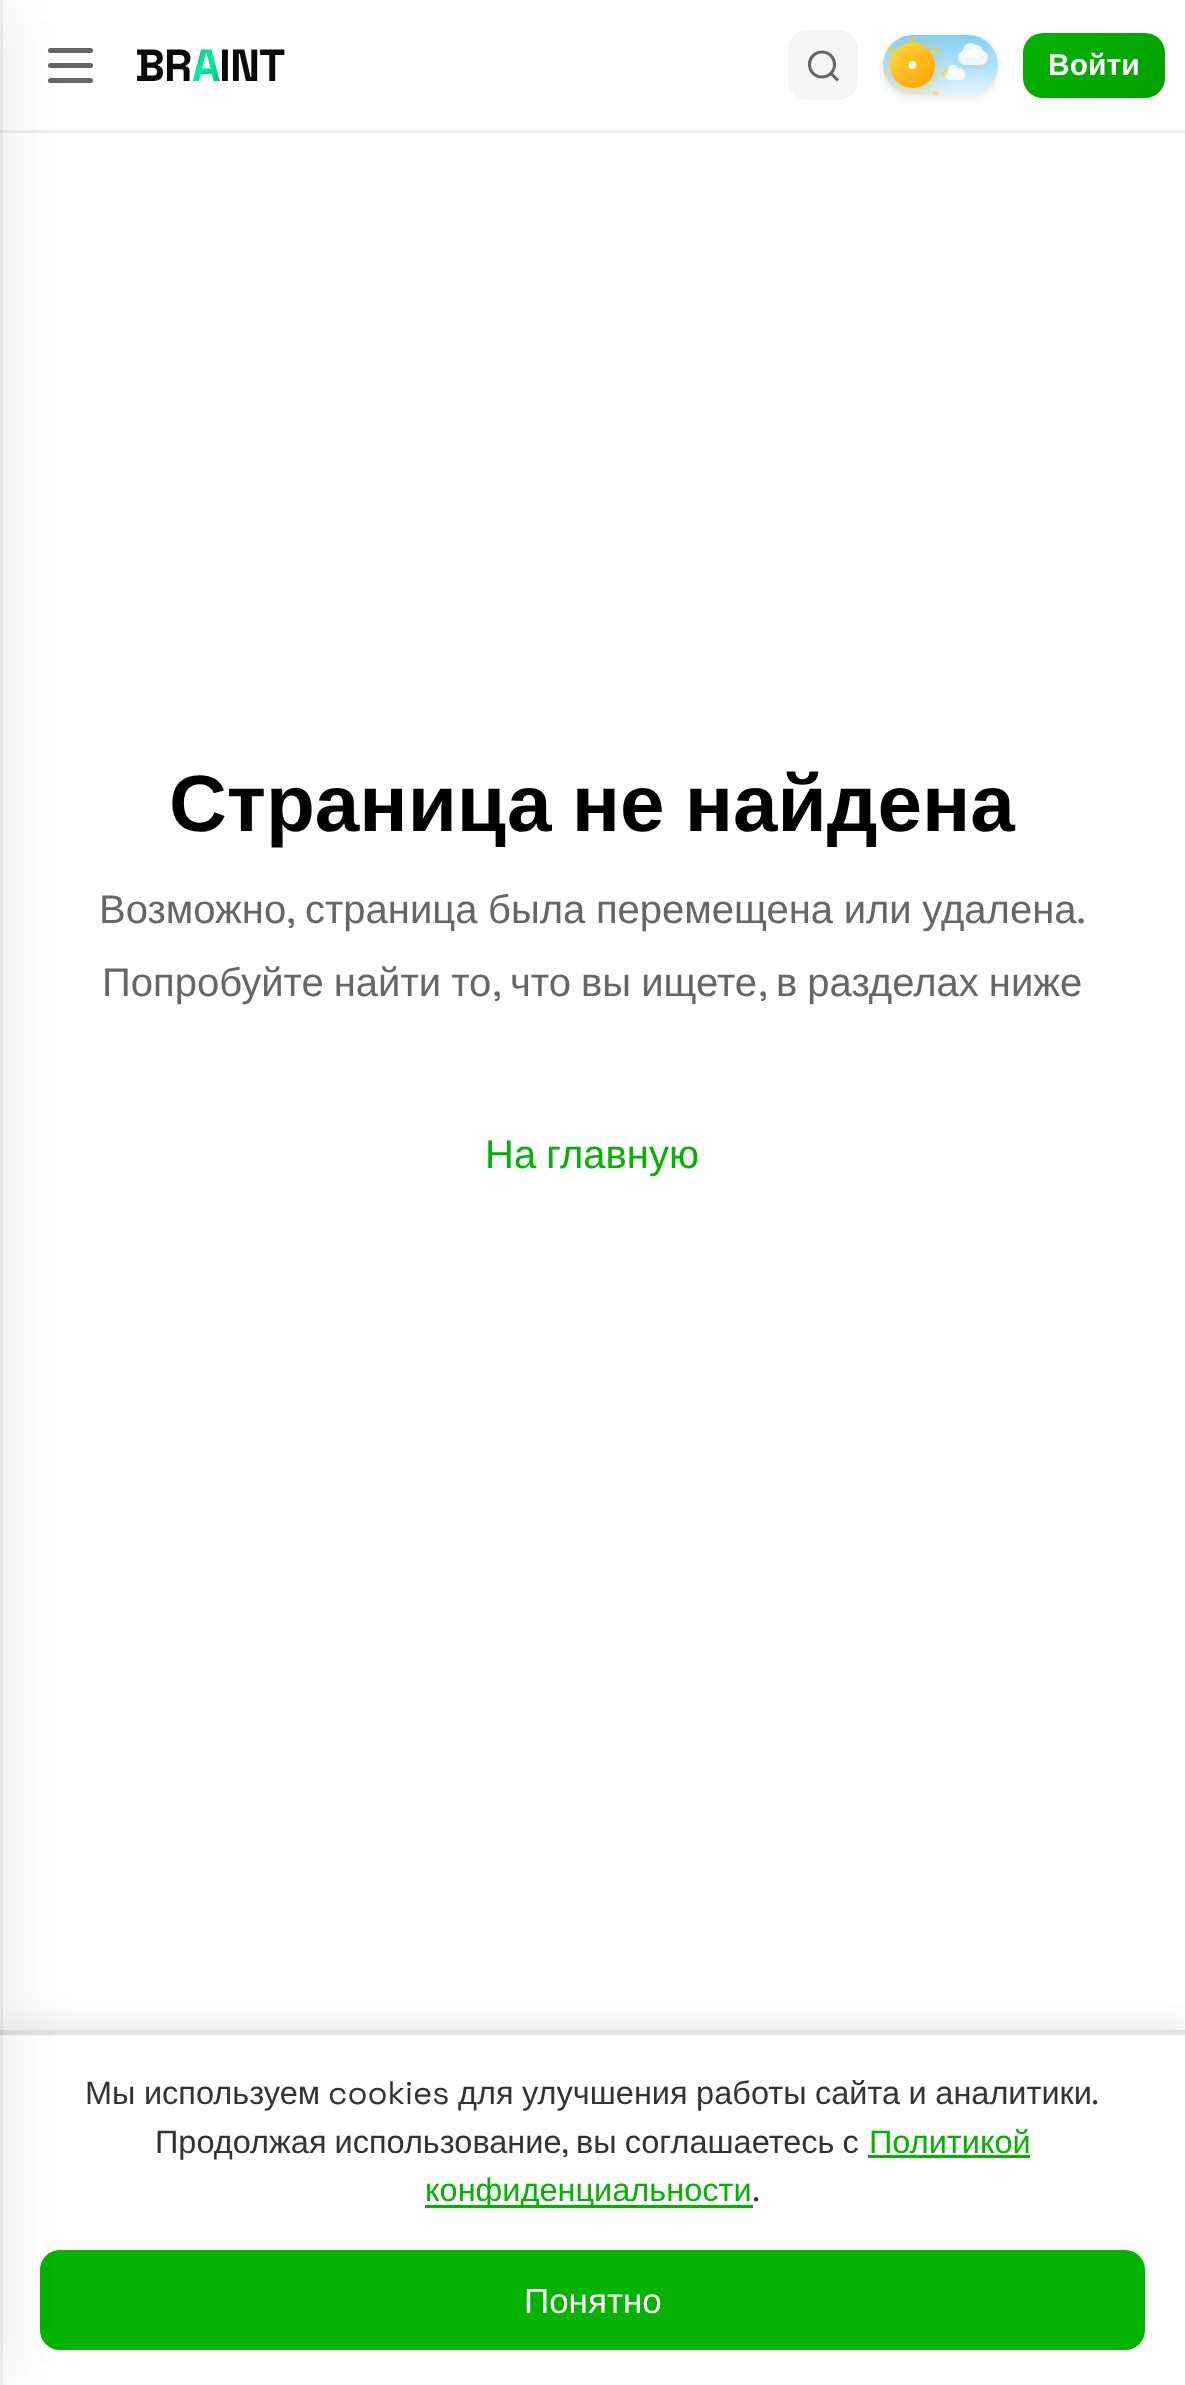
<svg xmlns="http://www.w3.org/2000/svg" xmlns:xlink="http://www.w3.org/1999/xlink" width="1185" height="2385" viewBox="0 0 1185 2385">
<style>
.cls-1{font:bold 45px Space Grotesk;letter-spacing:-1px;fill:#0a0a0a}
.cls-2{font:bold 45px Space Grotesk;letter-spacing:-1px;fill:url(#g2)}
.cls-3{font:bold 30px Liberation Sans;fill:#ffffff}
.cls-4{font:bold 80px Liberation Sans;fill:#000000}
.cls-5{font:40px Liberation Sans;fill:#666666}
.cls-6{font:40px Space Grotesk;fill:#666666}
.cls-7{font:40px Liberation Sans;fill:#03b300}
.cls-8{font:32.5px Liberation Sans;fill:#333333}
.cls-9{font:32.5px Space Grotesk;fill:#333333}
.cls-10{font:32.5px Liberation Sans;fill:#03b300}
.cls-11{font:35px Liberation Sans;fill:#ffffff}
</style>
<defs>
<linearGradient id="g1" gradientUnits="userSpaceOnUse" x1="940" y1="35" x2="940" y2="95"><stop offset="0" stop-color="#87ceeb"/><stop offset="0.5" stop-color="#b0e2ff"/><stop offset="1" stop-color="#e0f4ff"/></linearGradient>
<clipPath id="clip1"><path d="M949 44H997V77H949ZM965.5 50H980.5C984.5 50 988 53.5 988 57.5C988 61.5 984.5 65 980.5 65H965.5C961.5 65 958 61.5 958 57.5C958 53.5 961.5 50 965.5 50Z" clip-rule="evenodd"/></clipPath>
<clipPath id="clip2"><rect x="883" y="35" width="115" height="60" rx="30"/></clipPath>
<linearGradient id="g2" gradientUnits="userSpaceOnUse" x1="184" y1="44" x2="227" y2="86"><stop offset="0" stop-color="#03b300"/><stop offset="0.25" stop-color="#00d084"/><stop offset="0.5" stop-color="#00f0a0"/><stop offset="0.75" stop-color="#00d084"/><stop offset="1" stop-color="#03b300"/></linearGradient>
<linearGradient id="g3" gradientUnits="userSpaceOnUse" x1="890" y1="43" x2="935" y2="88"><stop offset="0" stop-color="#ffd93d"/><stop offset="1" stop-color="#ff9f00"/></linearGradient>
<linearGradient id="g4" gradientUnits="userSpaceOnUse" x1="1042" y1="13" x2="1146" y2="117"><stop offset="0" stop-color="#03b300"/><stop offset="1" stop-color="#02a000"/></linearGradient>
</defs>
<rect width="100%" height="100%" fill="#ffffff"/>
<rect fill="#f0f0f0" x="0" y="130" width="1185" height="3"/>
<rect fill="#000000" fill-opacity="0.08" filter="blur(15px)" x="0" y="2020" width="1185" height="355"/>
<rect fill="#ffffff" x="0" y="2035" width="1185" height="350"/>
<rect fill="#e0e0e0" x="0" y="2030" width="1185" height="5"/>
<rect fill="#000000" fill-opacity="0.05" x="0" y="0" width="3" height="2385"/>
<rect fill="#666666" x="48" y="48" width="45" height="5" rx="2.5"/>
<rect fill="#666666" x="48" y="63" width="45" height="5" rx="2.5"/>
<rect fill="#666666" x="48" y="78" width="45" height="5" rx="2.5"/>
<rect fill="#03b300" x="40" y="2250" width="1105" height="100" rx="20"/>
<rect fill="#000000" fill-opacity="0.08" filter="blur(30px)" x="-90" y="0" width="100" height="2385"/>
<rect fill="#f5f5f5" x="788" y="30" width="70" height="70" rx="20"/>
<circle fill="none" stroke="#666666" stroke-width="3.1" cx="822" cy="64.5" r="12.5"/>
<path fill="none" stroke="#666666" stroke-width="3.1" d="M838 80.5L831 73.5"/>
<rect fill="#000000" fill-opacity="0.1" filter="blur(4px)" x="883" y="38" width="115" height="60" rx="30"/>
<rect fill="url(#g1)" x="883" y="35" width="115" height="60" rx="30"/>
<g clip-path="url(#clip1)">
<rect fill="#000000" fill-opacity="0.05" filter="blur(2.5px)" x="958" y="53" width="30" height="15" rx="7.5"/>
</g>
<rect fill="#ffffff" fill-opacity="0.8" x="958" y="50" width="30" height="15" rx="7.5"/>
<circle fill="#ffffff" fill-opacity="0.8" cx="970.5" cy="50.5" r="7.5"/>
<rect fill="#ffffff" fill-opacity="0.8" x="945" y="70" width="20" height="10" rx="5"/>
<circle fill="#ffffff" fill-opacity="0.8" cx="953" cy="70" r="5"/>
<rect fill="#ffffff" fill-opacity="0.8" x="953" y="68" width="10" height="8" rx="4"/>
<g clip-path="url(#clip2)">
<rect fill="#ff9f00" fill-opacity="0.4" filter="blur(10px)" x="890" y="48" width="45" height="45" rx="22.5"/>
</g>
<circle fill="url(#g3)" cx="912.5" cy="65.5" r="22.5"/>
<rect fill="#ffd700" fill-opacity="0.6" x="910" y="38" width="5" height="8" rx="2.5"/>
<path fill="#ffd700" fill-opacity="0.6" d="M884.5 74.5L883.5 70C886 70.5 887 73.5 884.5 74.5ZM888.5 48C891 45 896.5 50.5 894 53C891.5 55.5 886 50.5 888.5 48Z"/>
<path fill="#ffd700" fill-opacity="0.6" d="M938 48C940.5 50.5 935.5 55.5 933 53C930.5 50.5 935.5 45 938 48ZM948.5 72.5C948.5 76 941 76 941 72.5C941 69 948.5 69 948.5 72.5ZM938.5 95H932.5C930.5 90.5 938 90 938.5 95Z"/>
<circle fill="#fff5e1" cx="912.5" cy="65" r="4"/>
<circle fill="#ffffff" fill-opacity="0.8" cx="976.5" cy="51.5" r="6.5"/>
<rect fill="url(#g4)" x="1023" y="33" width="142" height="65" rx="20"/>
<rect fill="#03b300" x="868" y="2155" width="162" height="3"/>
<rect fill="#03b300" x="425" y="2205" width="328" height="3"/>
<text class="cls-1" x="135" y="81">BR</text>
<text class="cls-2" x="192" y="81">A</text>
<text class="cls-1" x="219" y="81">INT</text>
<text class="cls-3" x="1048" y="75">Войти</text>
<text class="cls-4" x="169" y="831" word-spacing="-2">Страница не найдена</text>
<text class="cls-5" x="99" y="923">Возможно</text>
<text class="cls-6" x="286" y="923">,</text>
<text class="cls-5" x="305" y="923" word-spacing="-0.5">страница была перемещена или удалена</text>
<text class="cls-6" x="1076" y="923">.</text>
<text class="cls-5" x="102" y="996" word-spacing="-1">Попробуйте найти то</text>
<text class="cls-6" x="492" y="996">,</text>
<text class="cls-5" x="510" y="996" word-spacing="-1">что вы ищете</text>
<text class="cls-6" x="758" y="996">,</text>
<text class="cls-5" x="776" y="996" word-spacing="-1">в разделах ниже</text>
<text class="cls-7" x="485" y="1168" word-spacing="-1">На главную</text>
<text class="cls-8" x="85" y="2104" word-spacing="-0.5">Мы используем</text>
<text class="cls-9" x="328" y="2104">cookies</text>
<text class="cls-8" x="458" y="2104" word-spacing="-0.5">для улучшения работы сайта и аналитики</text>
<text class="cls-9" x="1091" y="2104">.</text>
<text class="cls-8" x="155" y="2153" word-spacing="-1">Продолжая использование</text>
<text class="cls-9" x="561" y="2153">,</text>
<text class="cls-8" x="576" y="2153" word-spacing="-1">вы соглашаетесь с</text>
<text class="cls-10" x="869" y="2153">Политикой</text>
<text class="cls-10" x="425" y="2201">конфиденциальности</text>
<text class="cls-9" x="752" y="2201">.</text>
<text class="cls-11" x="524" y="2313">Понятно</text>
</svg>
